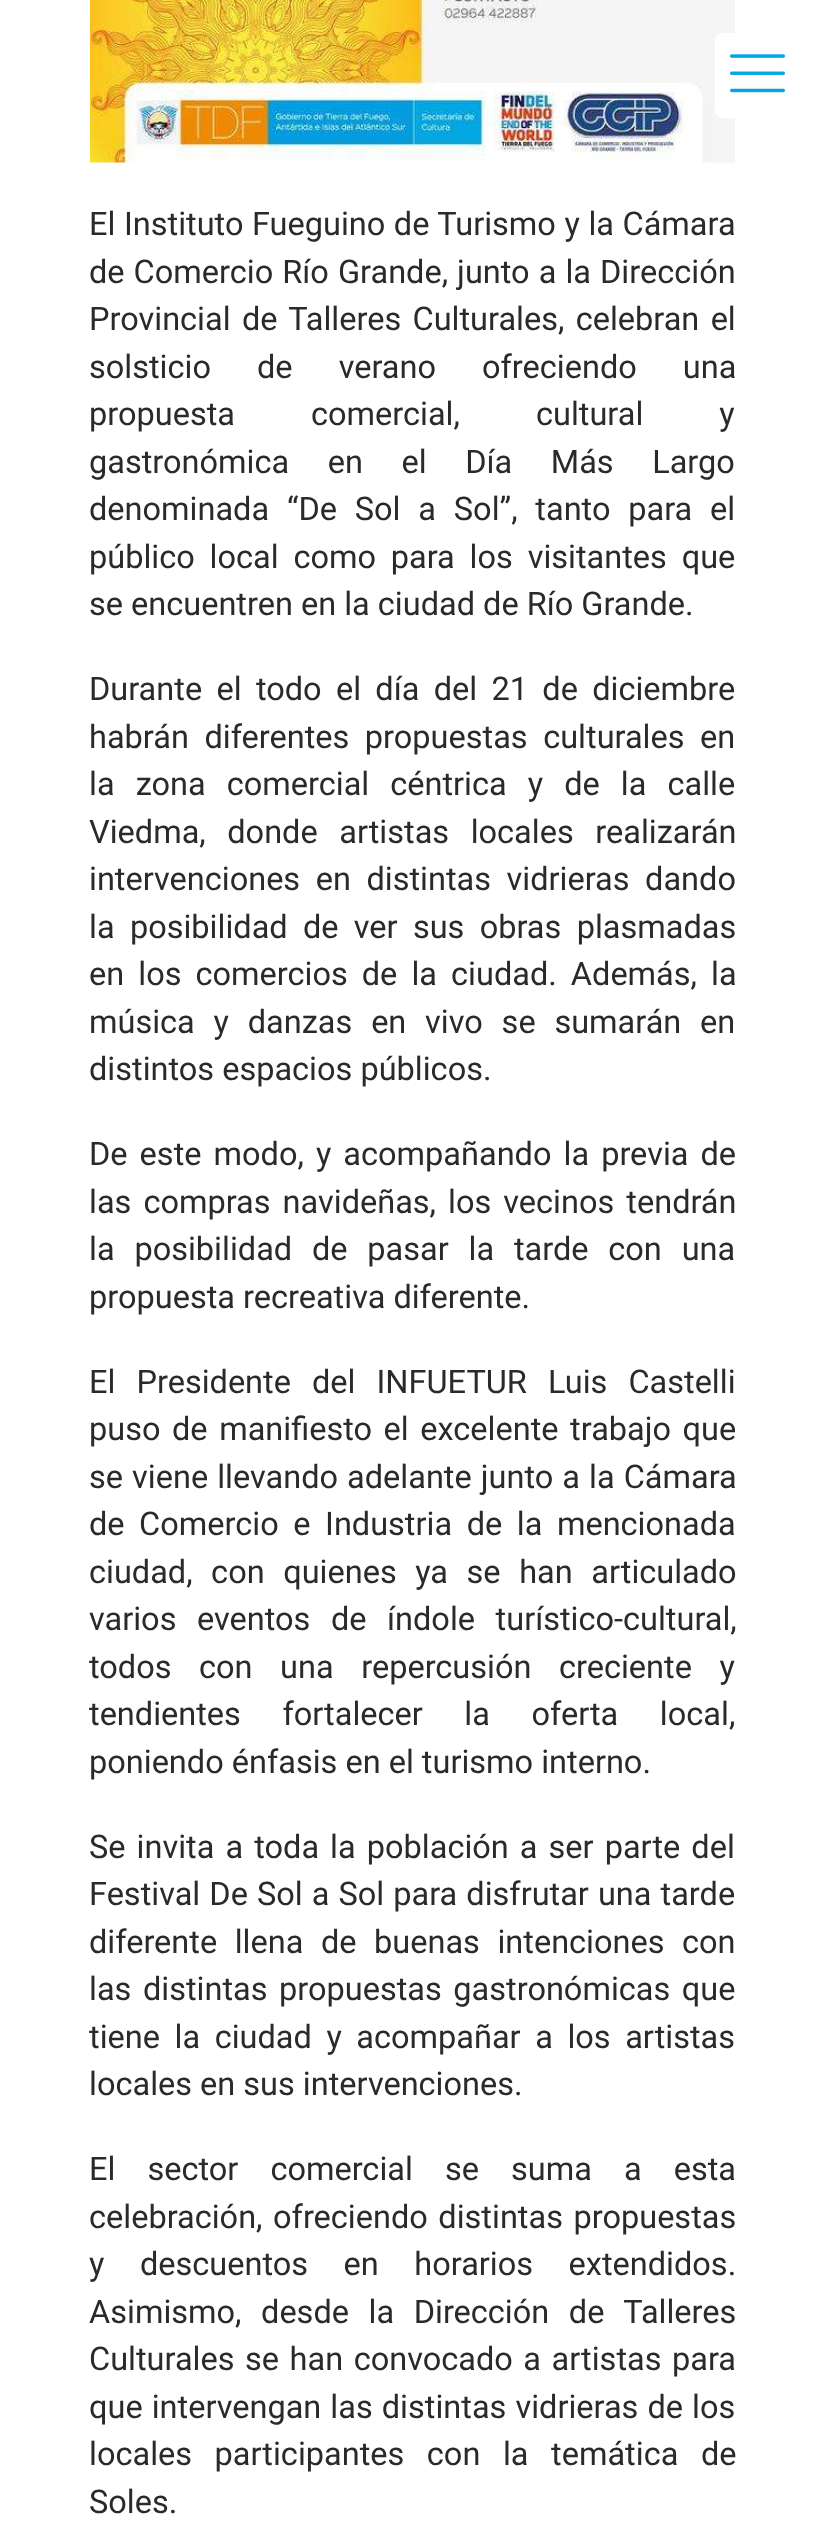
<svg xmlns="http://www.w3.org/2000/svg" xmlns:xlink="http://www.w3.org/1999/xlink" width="824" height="2544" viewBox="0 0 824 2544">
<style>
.cls-1{font:32.5px Roboto;fill:#2b2a2a}
</style>
<rect width="100%" height="100%" fill="#ffffff"/>
<image xlink:href="image1.png" x="90" y="0" width="645" height="163"/>
<rect fill="#ffffff" x="715" y="33" width="85" height="85" rx="8"/>
<image xlink:href="image0.png" x="730" y="54" width="55" height="39"/>
<text class="cls-1"><tspan x="89" y="235" word-spacing="0.5">El Instituto Fueguino de Turismo y la Cámara</tspan><tspan x="89" y="283" word-spacing="1">de Comercio Río Grande, junto a la Dirección</tspan><tspan x="89" y="330" word-spacing="3.25">Provincial de Talleres Culturales, celebran el</tspan><tspan x="89" y="378" word-spacing="38">solsticio de verano ofreciendo una</tspan><tspan x="89" y="425" word-spacing="68">propuesta comercial, cultural y</tspan><tspan x="89" y="473" word-spacing="30.5">gastronómica en el Día Más Largo</tspan><tspan x="89" y="520" word-spacing="9.75">denominada “De Sol a Sol”, tanto para el</tspan><tspan x="89" y="568" word-spacing="6.75">público local como para los visitantes que</tspan><tspan x="89" y="615">se encuentren en la ciudad de Río Grande.</tspan></text>
<text class="cls-1"><tspan x="89" y="700" word-spacing="6.25">Durante el todo el día del 21 de diciembre</tspan><tspan x="89" y="748" word-spacing="7.5">habrán diferentes propuestas culturales en</tspan><tspan x="89" y="795" word-spacing="13">la zona comercial céntrica y de la calle</tspan><tspan x="89" y="843" word-spacing="13.5">Viedma, donde artistas locales realizarán</tspan><tspan x="89" y="890" word-spacing="7.5">intervenciones en distintas vidrieras dando</tspan><tspan x="89" y="938" word-spacing="7.25">la posibilidad de ver sus obras plasmadas</tspan><tspan x="89" y="985" word-spacing="6">en los comercios de la ciudad. Además, la</tspan><tspan x="89" y="1033" word-spacing="10.75">música y danzas en vivo se sumarán en</tspan><tspan x="89" y="1080">distintos espacios públicos.</tspan></text>
<text class="cls-1"><tspan x="89" y="1165" word-spacing="4">De este modo, y acompañando la previa de</tspan><tspan x="89" y="1213" word-spacing="4">las compras navideñas, los vecinos tendrán</tspan><tspan x="89" y="1260" word-spacing="11.75">la posibilidad de pasar la tarde con una</tspan><tspan x="89" y="1308">propuesta recreativa diferente.</tspan></text>
<text class="cls-1"><tspan x="89" y="1393" word-spacing="13">El Presidente del INFUETUR Luis Castelli</tspan><tspan x="89" y="1440" word-spacing="3.5">puso de manifiesto el excelente trabajo que</tspan><tspan x="89" y="1488" word-spacing="1">se viene llevando adelante junto a la Cámara</tspan><tspan x="89" y="1535" word-spacing="6.5">de Comercio e Industria de la mencionada</tspan><tspan x="89" y="1583" word-spacing="10.5">ciudad, con quienes ya se han articulado</tspan><tspan x="89" y="1630" word-spacing="12.5">varios eventos de índole turístico-cultural,</tspan><tspan x="89" y="1678" word-spacing="19.5">todos con una repercusión creciente y</tspan><tspan x="89" y="1725" word-spacing="33.5">tendientes fortalecer la oferta local,</tspan><tspan x="89" y="1773">poniendo énfasis en el turismo interno.</tspan></text>
<text class="cls-1"><tspan x="89" y="1858" word-spacing="3">Se invita a toda la población a ser parte del</tspan><tspan x="89" y="1905" word-spacing="1">Festival De Sol a Sol para disfrutar una tarde</tspan><tspan x="89" y="1953" word-spacing="9.5">diferente llena de buenas intenciones con</tspan><tspan x="89" y="2000" word-spacing="3.5">las distintas propuestas gastronómicas que</tspan><tspan x="89" y="2048" word-spacing="6.5">tiene la ciudad y acompañar a los artistas</tspan><tspan x="89" y="2095">locales en sus intervenciones.</tspan></text>
<text class="cls-1"><tspan x="89" y="2180" word-spacing="24">El sector comercial se suma a esta</tspan><tspan x="89" y="2228" word-spacing="2.5">celebración, ofreciendo distintas propuestas</tspan><tspan x="89" y="2275" word-spacing="27.5">y descuentos en horarios extendidos.</tspan><tspan x="89" y="2323" word-spacing="11.5">Asimismo, desde la Dirección de Talleres</tspan><tspan x="89" y="2370" word-spacing="2.5">Culturales se han convocado a artistas para</tspan><tspan x="89" y="2418" word-spacing="1">que intervengan las distintas vidrieras de los</tspan><tspan x="89" y="2465" word-spacing="14.5">locales participantes con la temática de</tspan><tspan x="89" y="2513">Soles.</tspan></text>
</svg>
